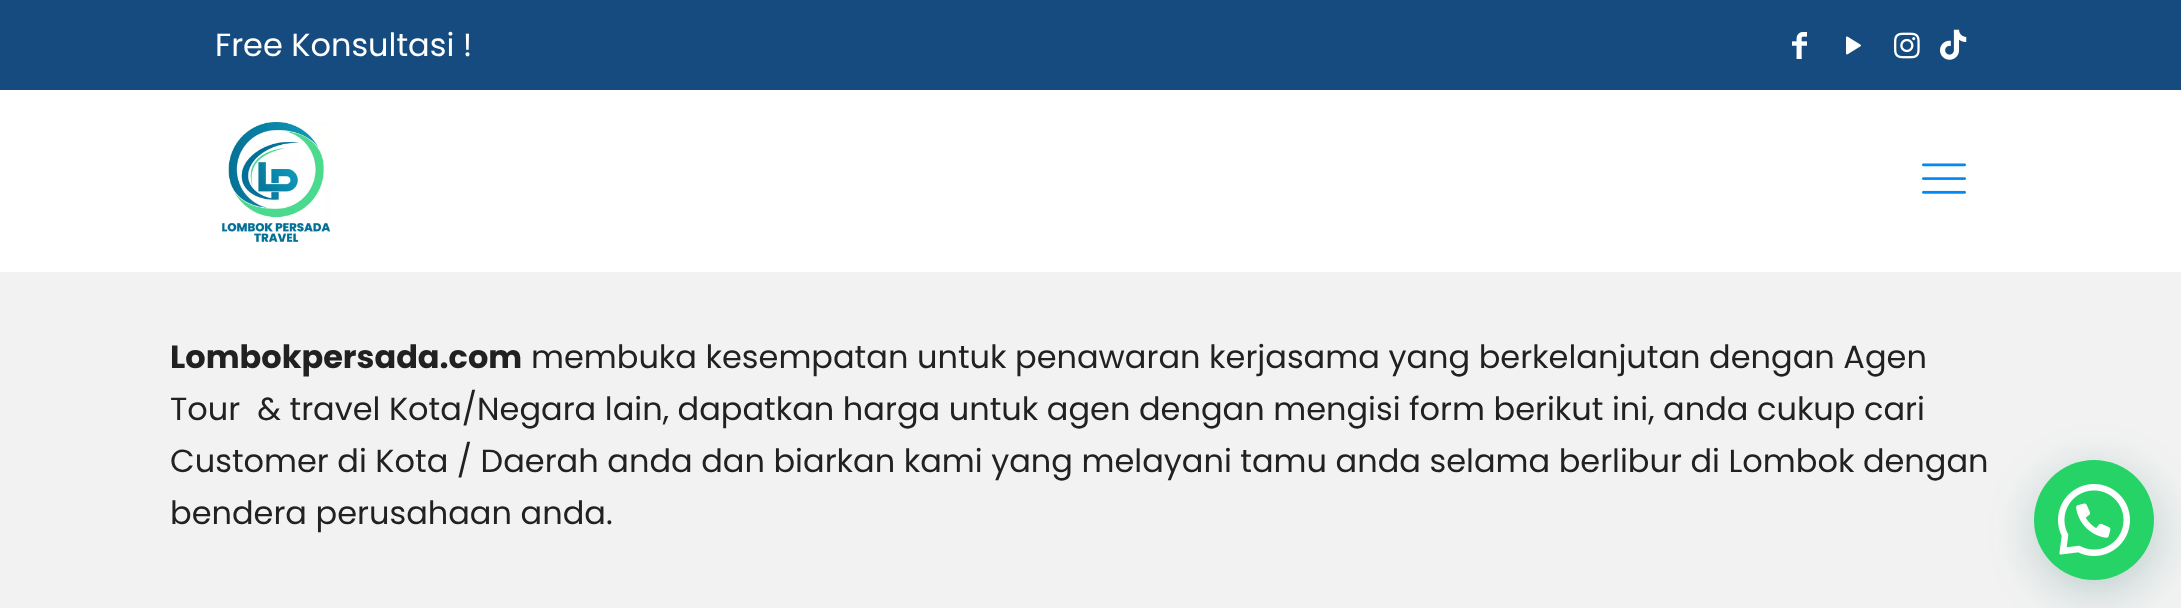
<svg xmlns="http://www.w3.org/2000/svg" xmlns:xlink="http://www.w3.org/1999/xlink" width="2181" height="608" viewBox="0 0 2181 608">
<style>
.cls-1{font:32px Poppins;fill:#ffffff}
.cls-2{font:bold 32px Poppins;fill:#212121}
.cls-3{font:32px Poppins;fill:#212121}
</style>
<rect width="100%" height="100%" fill="#f2f2f2"/>
<rect fill="#154b7e" x="0" y="0" width="2181" height="90"/>
<image xlink:href="image0.png" x="1792" y="32" width="15" height="27"/>
<image xlink:href="image1.png" x="1846" y="36" width="15" height="19"/>
<image xlink:href="image2.png" x="1894" y="32" width="26" height="27"/>
<image xlink:href="image3.png" x="1940" y="29" width="27" height="31"/>
<rect fill="#ffffff" x="0" y="90" width="2181" height="182"/>
<image xlink:href="image4.png" x="222" y="122" width="109" height="120"/>
<image xlink:href="image5.png" x="1922" y="163" width="44" height="31"/>
<rect fill="#075e54" fill-opacity="0.24" filter="blur(24px)" x="2036" y="472" width="120" height="120" rx="60"/>
<circle fill="#25d366" cx="2094" cy="520" r="60"/>
<image xlink:href="image6.png" x="2058" y="484" width="72" height="72"/>
<text class="cls-1" x="215" y="56">Free Konsultasi !</text>
<text class="cls-2" x="170" y="368">Lombokpersada.com</text>
<text class="cls-3" x="531" y="368">membuka kesempatan untuk penawaran kerjasama yang berkelanjutan dengan Agen</text>
<text class="cls-3" xml:space="preserve"><tspan x="170" y="420">Tour  &amp; travel Kota/Negara lain, dapatkan harga untuk agen dengan mengisi form berikut ini, anda cukup cari</tspan><tspan x="170" y="472">Customer di Kota / Daerah anda dan biarkan kami yang melayani tamu anda selama berlibur di Lombok dengan</tspan><tspan x="170" y="524">bendera perusahaan anda.</tspan></text>
</svg>
